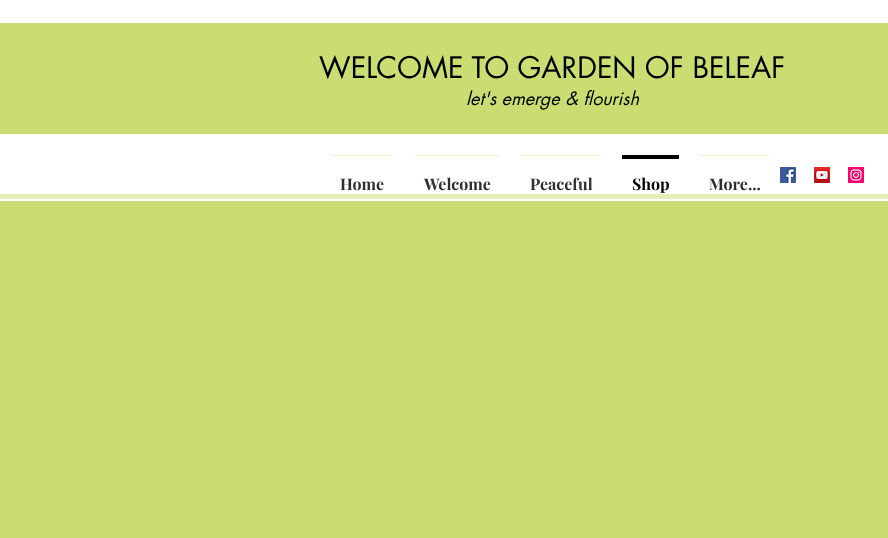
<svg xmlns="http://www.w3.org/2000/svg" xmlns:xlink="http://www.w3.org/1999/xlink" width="888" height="538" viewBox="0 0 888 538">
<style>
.cls-1{font:29px futura;fill:#000000}
.cls-2{font:italic 18px futura;fill:#000000}
.cls-3{font:bold 16px Playfair Display;fill:#2f2e2e}
.cls-4{font:bold 16px Playfair Display;fill:#000000}
</style>
<rect width="100%" height="100%" fill="#c9dd72"/>
<rect fill="#ffffff" x="0" y="0" width="888" height="201"/>
<rect fill="#c9dd72" x="0" y="23" width="888" height="111"/>
<image xlink:href="image0.png" x="780" y="167" width="16" height="16"/>
<image xlink:href="image1.png" x="814" y="167" width="16" height="16"/>
<image xlink:href="image2.png" x="848" y="167" width="16" height="16"/>
<rect fill="#eef4d2" x="331" y="155" width="63" height="1"/>
<rect fill="#eef4d2" x="414" y="155" width="86" height="1"/>
<rect fill="#eef4d2" x="520" y="155" width="82" height="1"/>
<rect fill="#000000" x="622" y="155" width="57" height="4"/>
<rect fill="#eef4d2" x="699" y="155" width="71" height="1"/>
<rect fill="#e4eeb8" x="0" y="194" width="888" height="5"/>
<text class="cls-1" x="319" y="78">WELCOME TO GARDEN OF BELEAF</text>
<text class="cls-2" x="466" y="105">let's emerge &amp; flourish</text>
<text class="cls-3" x="340" y="190">Home</text>
<text class="cls-3" x="424" y="190">Welcome</text>
<text class="cls-3" x="530" y="190">Peaceful</text>
<text class="cls-4" x="632" y="190">Shop</text>
<text class="cls-3" x="709" y="190">More...</text>
</svg>
